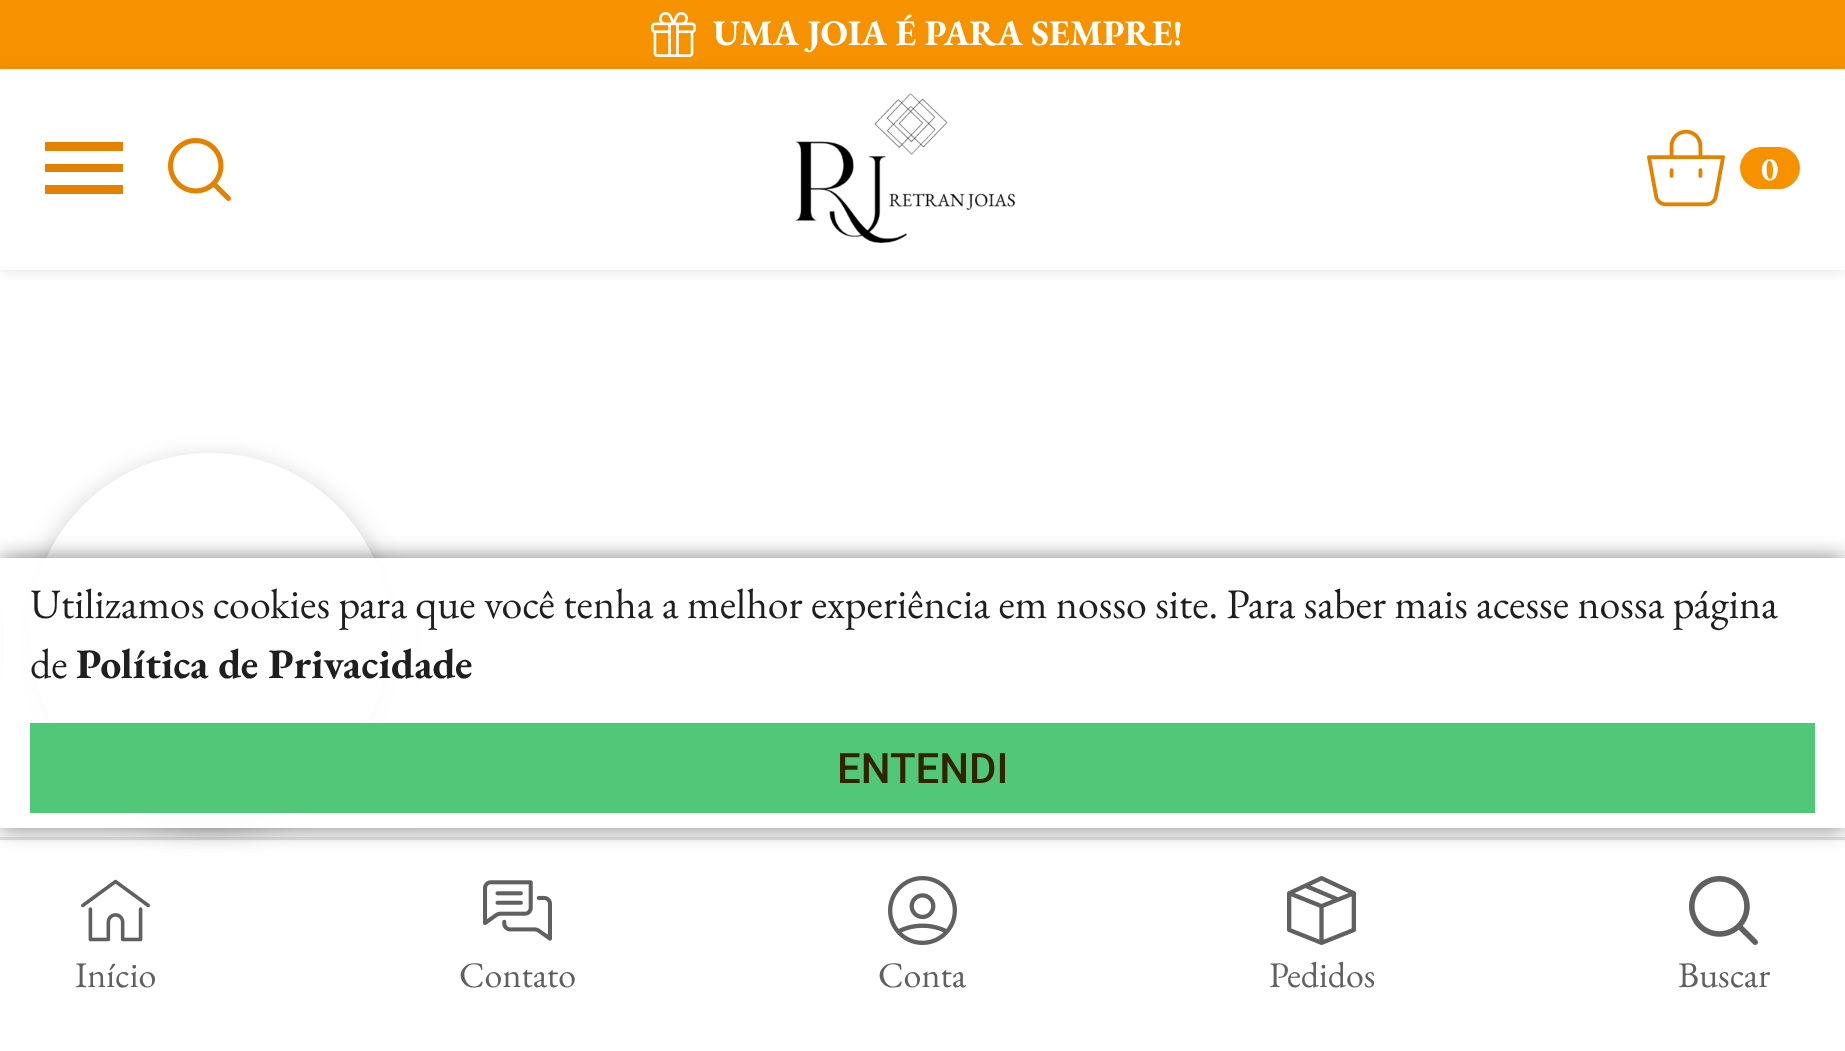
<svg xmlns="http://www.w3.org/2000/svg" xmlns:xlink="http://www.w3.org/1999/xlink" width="1845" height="1051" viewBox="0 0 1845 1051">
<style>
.cls-1{font:bold 36px EB Garamond;fill:#ffffff}
.cls-2{font:bold 33px EB Garamond;fill:#ffffff}
.cls-3{font:42px EB Garamond;fill:#201f1f}
.cls-4{font:bold 42px EB Garamond;fill:#201f1f}
.cls-5{font:500 42px Roboto;fill:#332200}
.cls-6{font:36px EB Garamond;fill:#606060}
</style>
<defs>
<clipPath id="clip1"><path d="M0 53H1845V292H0ZM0 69H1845V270H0Z" clip-rule="evenodd"/></clipPath>
<clipPath id="clip2"><path d="M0 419H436V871H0ZM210 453C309.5 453 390 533.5 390 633C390 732.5 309.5 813 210 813C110.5 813 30 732.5 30 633C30 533.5 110.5 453 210 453Z" clip-rule="evenodd"/></clipPath>
<clipPath id="clip3"><path d="M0 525H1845V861H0ZM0 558H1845V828H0Z" clip-rule="evenodd"/></clipPath>
</defs>
<rect width="100%" height="100%" fill="#ffffff"/>
<rect fill="#f69100" x="0" y="0" width="1845" height="69"/>
<image xlink:href="image0.png" x="651" y="12" width="45" height="45"/>
<g clip-path="url(#clip1)">
<rect fill="#525252" fill-opacity="0.13" filter="blur(6px)" x="0" y="72" width="1845" height="201"/>
</g>
<rect fill="#fcfcfc" x="0" y="267" width="1845" height="3"/>
<rect fill="#e48200" x="45" y="185" width="78" height="9"/>
<rect fill="#e48200" x="45" y="164" width="78" height="8"/>
<rect fill="#e48200" x="45" y="142" width="78" height="9"/>
<image xlink:href="image1.png" x="168" y="138" width="63" height="63"/>
<image xlink:href="image2.png" x="795" y="93" width="221" height="150"/>
<image xlink:href="image3.png" x="1647" y="129" width="78" height="78"/>
<rect fill="#f69100" x="1740" y="147" width="60" height="42" rx="21"/>
<rect fill="#525252" fill-opacity="0.08" filter="blur(6px)" x="0" y="837" width="1845" height="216"/>
<rect fill="#ffffff" x="0" y="840" width="1845" height="211"/>
<rect fill="#e2e2e2" x="0" y="837" width="1845" height="3"/>
<g clip-path="url(#clip2)">
<rect fill="#000000" fill-opacity="0.3" filter="blur(15px)" x="30" y="465" width="360" height="360" rx="180"/>
</g>
<g clip-path="url(#clip3)">
<rect fill="#000000" fill-opacity="0.5" filter="blur(10.5px)" x="0" y="558" width="1845" height="270"/>
</g>
<rect fill="#ffffff" fill-opacity="0.95" x="4" y="558" width="412" height="270"/>
<rect fill="#50c878" x="30" y="723" width="1785" height="90"/>
<image xlink:href="image4.png" x="81" y="879" width="69" height="63"/>
<image xlink:href="image5.png" x="483" y="880" width="69" height="61"/>
<image xlink:href="image6.png" x="888" y="876" width="69" height="69"/>
<image xlink:href="image7.png" x="1287" y="876" width="69" height="69"/>
<image xlink:href="image8.png" x="1689" y="876" width="69" height="69"/>
<text class="cls-1" x="713" y="45">UMA JOIA É PARA SEMPRE!</text>
<text class="cls-2" x="1761" y="180">0</text>
<text class="cls-3"><tspan x="30" y="618">Utilizamos cookies para que você tenha a melhor experiência em nosso site. Para saber mais acesse nossa página</tspan><tspan x="30" y="678">de</tspan></text>
<text class="cls-4" x="76" y="678">Política de Privacidade</text>
<text class="cls-5" x="837" y="783">ENTENDI</text>
<text class="cls-6" x="75" y="987">Início</text>
<text class="cls-6" x="459" y="987">Contato</text>
<text class="cls-6" x="878" y="987">Conta</text>
<text class="cls-6" x="1269" y="987">Pedidos</text>
<text class="cls-6" x="1678" y="987">Buscar</text>
</svg>
